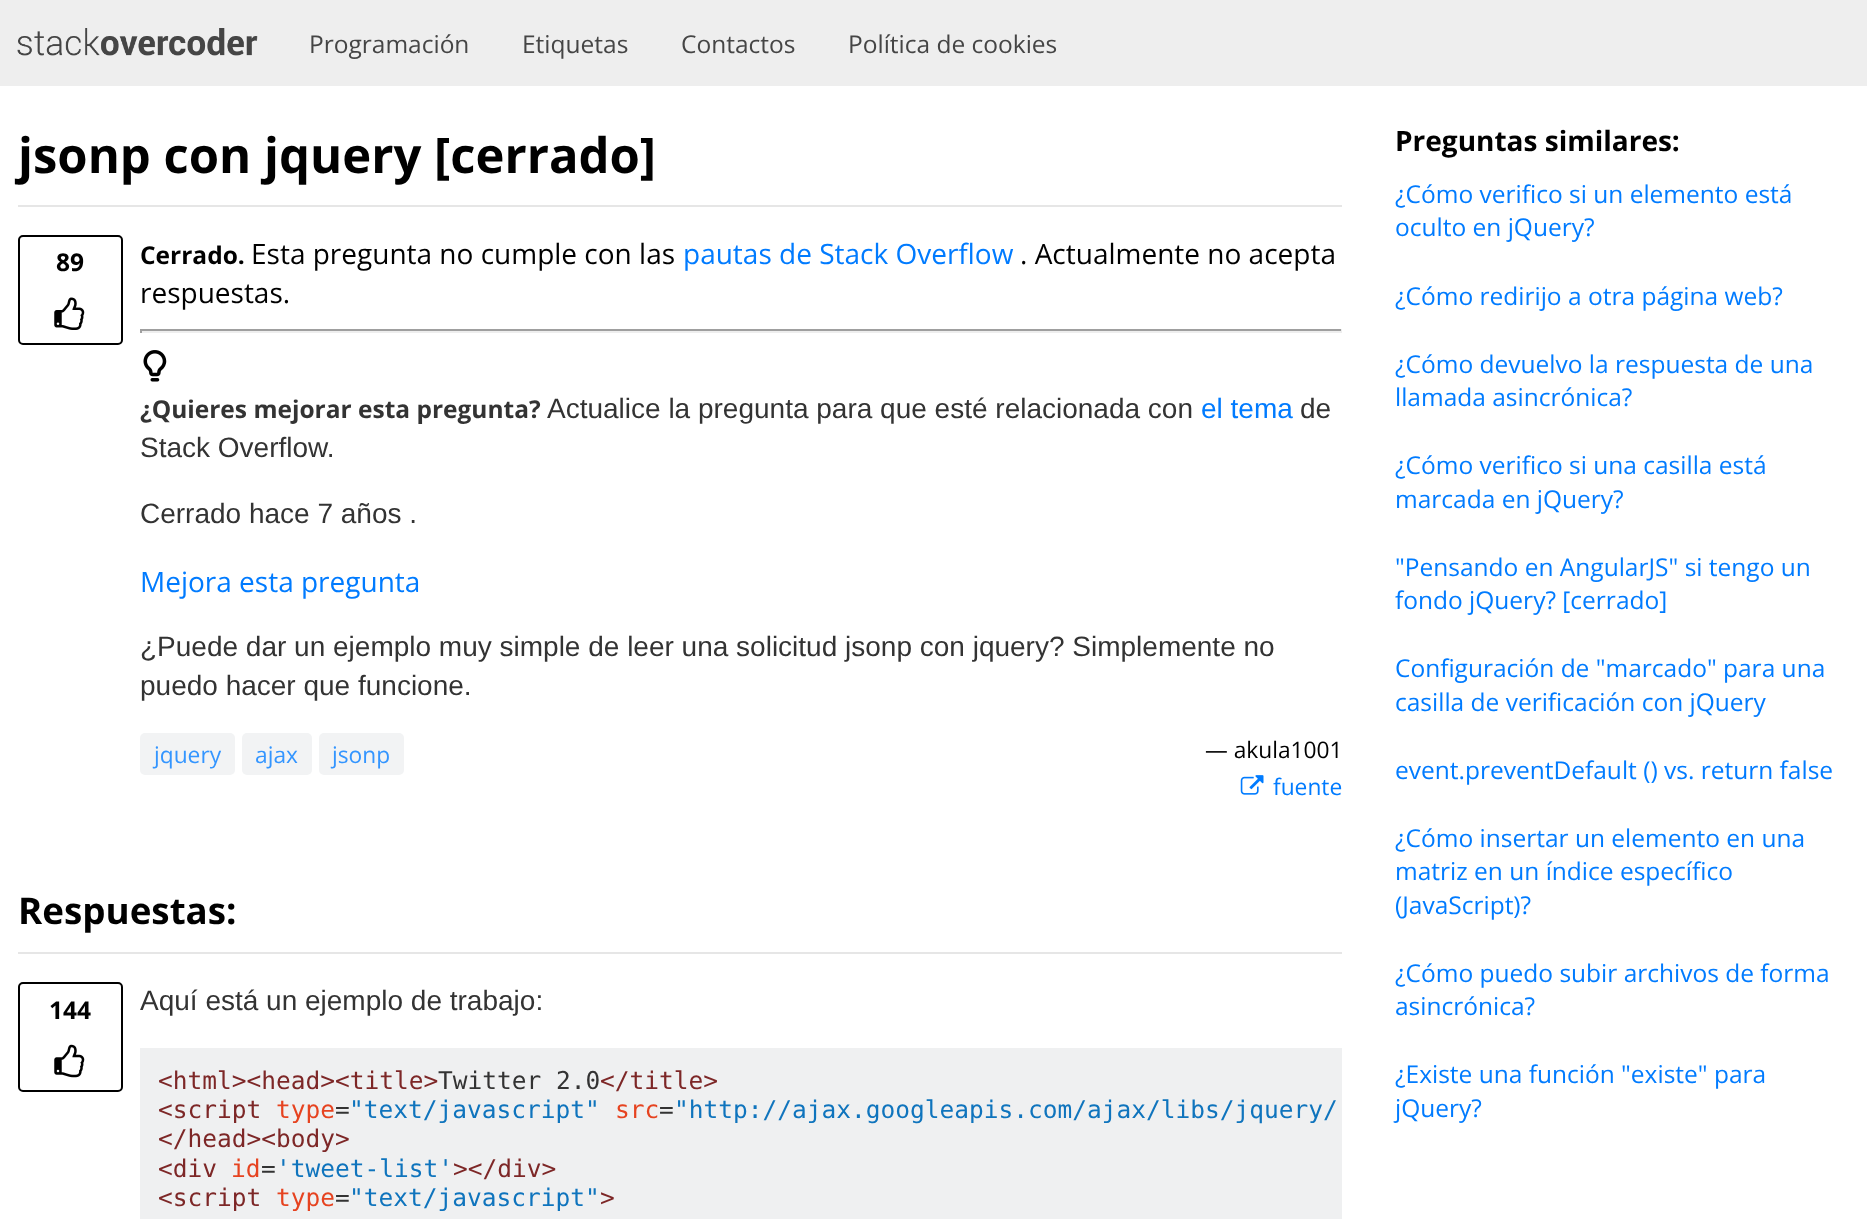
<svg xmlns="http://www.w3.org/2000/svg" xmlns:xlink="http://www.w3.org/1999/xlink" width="1867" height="1219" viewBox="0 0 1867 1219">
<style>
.cls-1{font:24.5px Open Sans;fill:#454545}
.cls-2{font:bold 49px Open Sans;fill:#000000}
.cls-3{font:bold 24.5px Open Sans;fill:#000000}
.cls-4{font:28px Open Sans;fill:#000000}
.cls-5{font:28px Open Sans;fill:#007bff}
.cls-6{font:bold 24.5px Open Sans;fill:#333333}
.cls-7{font:28px Liberation Sans;fill:#333333}
.cls-8{font:28px Liberation Sans;fill:#007bff}
.cls-9{font:22.75px Open Sans;fill:#3395ff}
.cls-10{font:22.75px Open Sans;fill:#000000}
.cls-11{font:22.75px Open Sans;fill:#007bff}
.cls-12{font:bold 36.75px Open Sans;fill:#000000}
.cls-13{font:24.5px DejaVu Sans Mono;fill:#7d2727}
.cls-14{font:24.5px DejaVu Sans Mono;fill:#333333}
.cls-15{font:24.5px DejaVu Sans Mono;fill:#e64320}
.cls-16{font:24.5px DejaVu Sans Mono;fill:#0f74bd}
.cls-17{font:bold 28px Open Sans;fill:#000000}
.cls-18{font:24.5px Open Sans;fill:#007bff}
</style>
<rect width="100%" height="100%" fill="#ffffff"/>
<rect fill="#eeeeee" x="0" y="0" width="1867" height="86"/>
<image xlink:href="image0.png" x="17" y="28" width="241" height="28"/>
<rect fill="#e6e6e6" x="18" y="205" width="1324" height="2"/>
<rect fill="none" stroke="#000000" stroke-width="2" x="19" y="236" width="103" height="108" rx="4"/>
<image xlink:href="image1.png" x="54" y="297" width="31" height="33"/>
<rect fill="#9f9f9f" x="140" y="329" width="1202" height="2"/>
<rect fill="#eeeeee" x="1341" y="329" width="1" height="4"/>
<rect fill="#eeeeee" x="140" y="331" width="1202" height="2"/>
<rect fill="#9f9f9f" x="140" y="329" width="2" height="4"/>
<image xlink:href="image2.png" x="143" y="350" width="24" height="32"/>
<rect fill="#f2f3f4" x="140" y="733" width="95" height="42" rx="5"/>
<rect fill="#f2f3f4" x="242" y="733" width="70" height="42" rx="5"/>
<rect fill="#f2f3f4" x="319" y="733" width="85" height="42" rx="5"/>
<image xlink:href="image3.png" x="1240" y="775" width="24" height="20"/>
<rect fill="#e6e6e6" x="18" y="952" width="1324" height="2"/>
<rect fill="none" stroke="#000000" stroke-width="2" x="19" y="983" width="103" height="108" rx="4"/>
<image xlink:href="image4.png" x="54" y="1044" width="31" height="34"/>
<rect fill="#eff0f1" x="140" y="1048" width="1202" height="171"/>
<text class="cls-1" x="309" y="53">Programación</text>
<text class="cls-1" x="522" y="53">Etiquetas</text>
<text class="cls-1" x="681" y="53">Contactos</text>
<text class="cls-1" x="848" y="53">Política de cookies</text>
<text class="cls-2" x="18" y="173">jsonp con jquery [cerrado]</text>
<text class="cls-3" x="56" y="271">89</text>
<text class="cls-3" x="140" y="264">Cerrado.</text>
<text class="cls-4" x="251" y="264">Esta pregunta no cumple con las</text>
<text class="cls-5" x="683" y="264">pautas de Stack Overflow</text>
<text class="cls-4" x="1020" y="264">. Actualmente no acepta</text>
<text class="cls-4" x="140" y="303">respuestas.</text>
<text class="cls-6" x="140" y="418">¿Quieres mejorar esta pregunta?</text>
<text class="cls-7" x="547" y="418">Actualice la pregunta para que esté relacionada con</text>
<text class="cls-8" x="1201" y="418">el tema</text>
<text class="cls-7" x="1300" y="418">de</text>
<text class="cls-7" x="140" y="457">Stack Overflow.</text>
<text class="cls-7" x="140" y="523">Cerrado hace 7 años .</text>
<text class="cls-5" x="140" y="592">Mejora esta pregunta</text>
<text class="cls-7"><tspan x="140" y="656">¿Puede dar un ejemplo muy simple de leer una solicitud jsonp con jquery? Simplemente no</tspan><tspan x="140" y="695">puedo hacer que funcione.</tspan></text>
<text class="cls-9" x="154" y="763">jquery</text>
<text class="cls-9" x="255" y="763">ajax</text>
<text class="cls-9" x="332" y="763">jsonp</text>
<text class="cls-10" x="1205" y="758">— akula1001</text>
<text class="cls-11" x="1273" y="795">fuente</text>
<text class="cls-12" x="18" y="924">Respuestas:</text>
<text class="cls-3" x="49" y="1019">144</text>
<text class="cls-7" x="140" y="1010">Aquí está un ejemplo de trabajo:</text>
<text class="cls-13" x="158" y="1089">&lt;html&gt;&lt;head&gt;&lt;title&gt;</text>
<text class="cls-14" x="438" y="1089">Twitter 2.0</text>
<text class="cls-13" x="600" y="1089">&lt;/title&gt;</text>
<text class="cls-13" x="158" y="1118">&lt;script</text>
<text class="cls-15" x="276" y="1118">type</text>
<text class="cls-14" x="335" y="1118">=</text>
<text class="cls-16" x="349" y="1118">"text/javascript"</text>
<text class="cls-15" x="615" y="1118">src</text>
<text class="cls-14" x="659" y="1118">=</text>
<text class="cls-16" x="674" y="1118">"http://ajax.googleapis.com/ajax/libs/jquery/</text>
<text class="cls-13"><tspan x="158" y="1147">&lt;/head&gt;&lt;body&gt;</tspan><tspan x="158" y="1177">&lt;div</tspan></text>
<text class="cls-15" x="231" y="1177">id</text>
<text class="cls-14" x="261" y="1177">=</text>
<text class="cls-16" x="276" y="1177">'tweet-list'</text>
<text class="cls-13" x="453" y="1177">&gt;&lt;/div&gt;</text>
<text class="cls-13" x="158" y="1206">&lt;script</text>
<text class="cls-15" x="276" y="1206">type</text>
<text class="cls-14" x="335" y="1206">=</text>
<text class="cls-16" x="349" y="1206">"text/javascript"</text>
<text class="cls-13" x="600" y="1206">&gt;</text>
<text class="cls-17" x="1395" y="151">Preguntas similares:</text>
<text class="cls-18"><tspan x="1395" y="203">¿Cómo verifico si un elemento está</tspan><tspan x="1395" y="236">oculto en jQuery?</tspan></text>
<text class="cls-18" x="1395" y="305">¿Cómo redirijo a otra página web?</text>
<text class="cls-18"><tspan x="1395" y="373">¿Cómo devuelvo la respuesta de una</tspan><tspan x="1395" y="406">llamada asincrónica?</tspan></text>
<text class="cls-18"><tspan x="1395" y="474">¿Cómo verifico si una casilla está</tspan><tspan x="1395" y="508">marcada en jQuery?</tspan></text>
<text class="cls-18"><tspan x="1395" y="576">"Pensando en AngularJS" si tengo un</tspan><tspan x="1395" y="609">fondo jQuery? [cerrado]</tspan></text>
<text class="cls-18"><tspan x="1395" y="677">Configuración de "marcado" para una</tspan><tspan x="1395" y="711">casilla de verificación con jQuery</tspan></text>
<text class="cls-18" x="1395" y="779">event.preventDefault () vs. return false</text>
<text class="cls-18"><tspan x="1395" y="847">¿Cómo insertar un elemento en una</tspan><tspan x="1395" y="880">matriz en un índice específico</tspan><tspan x="1395" y="914">(JavaScript)?</tspan></text>
<text class="cls-18"><tspan x="1395" y="982">¿Cómo puedo subir archivos de forma</tspan><tspan x="1395" y="1015">asincrónica?</tspan></text>
<text class="cls-18"><tspan x="1395" y="1083">¿Existe una función "existe" para</tspan><tspan x="1395" y="1117">jQuery?</tspan></text>
</svg>
